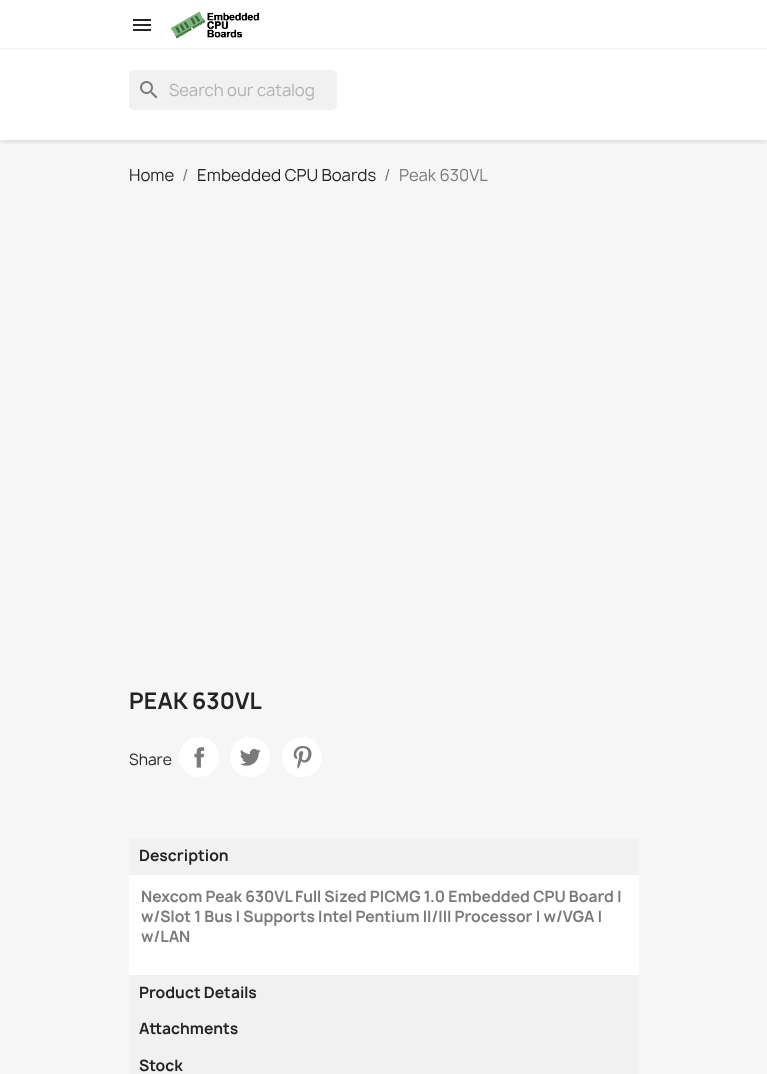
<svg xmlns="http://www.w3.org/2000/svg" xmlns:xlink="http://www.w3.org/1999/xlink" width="767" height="1074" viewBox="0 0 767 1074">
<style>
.cls-1{font:16px Manrope;fill:#b1b1b1}
.cls-2{font:16px Manrope;fill:#232323}
.cls-3{font:16px Manrope;fill:#7a7a7a}
.cls-4{font:bold 22px Manrope;fill:#232323}
.cls-5{font:15px Manrope;fill:#232323}
.cls-6{font:bold 15px Manrope;fill:#232323}
.cls-7{font:bold 15px Manrope;fill:#7a7a7a}
</style>
<defs>
<clipPath id="clip1"><rect x="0" y="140" width="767" height="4"/></clipPath>
</defs>
<rect width="100%" height="100%" fill="#ffffff"/>
<rect fill="#f6f6f6" x="0" y="140" width="767" height="934"/>
<g clip-path="url(#clip1)">
<rect fill="#000000" fill-opacity="0.11" filter="blur(2.5px)" x="0" y="2" width="767" height="140"/>
</g>
<rect fill="#f6f6f6" x="0" y="48" width="767" height="2"/>
<image xlink:href="image0.png" x="133" y="19" width="18" height="12"/>
<image xlink:href="image1.png" x="170" y="11" width="90" height="28"/>
<rect fill="#f1f1f1" x="129" y="70" width="208" height="40" rx="5"/>
<image xlink:href="image2.png" x="140" y="81" width="18" height="18"/>
<circle fill="#ffffff" cx="199" cy="757" r="20"/>
<image xlink:href="image3.png" x="194" y="747" width="11" height="21"/>
<circle fill="#ffffff" cx="250" cy="757" r="20"/>
<image xlink:href="image4.png" x="240" y="748" width="21" height="18"/>
<circle fill="#ffffff" cx="302" cy="757" r="20"/>
<image xlink:href="image5.png" x="293" y="746" width="19" height="23"/>
<rect fill="#f1f1f1" x="129" y="838" width="510" height="37"/>
<rect fill="#ffffff" x="129" y="875" width="510" height="100"/>
<rect fill="#f1f1f1" x="129" y="975" width="510" height="99"/>
<text class="cls-1" x="169" y="96">Search our catalog</text>
<text class="cls-2" x="129" y="181">Home</text>
<text class="cls-3" x="182" y="181">/</text>
<text class="cls-2" x="197" y="181">Embedded CPU Boards</text>
<text class="cls-3" x="384" y="181">/</text>
<text class="cls-3" x="399" y="181">Peak 630VL</text>
<text class="cls-4" x="129" y="709">PEAK 630VL</text>
<text class="cls-5" x="129" y="765">Share</text>
<text class="cls-6" x="139" y="861">Description</text>
<text class="cls-7"><tspan x="141" y="902">Nexcom Peak 630VL Full Sized PICMG 1.0 Embedded CPU Board |</tspan><tspan x="141" y="922">w/Slot 1 Bus | Supports Intel Pentium II/III Processor | w/VGA |</tspan><tspan x="141" y="942">w/LAN</tspan></text>
<text class="cls-6" x="139" y="998">Product Details</text>
<text class="cls-6" x="139" y="1034">Attachments</text>
<text class="cls-6" x="139" y="1071">Stock</text>
</svg>
